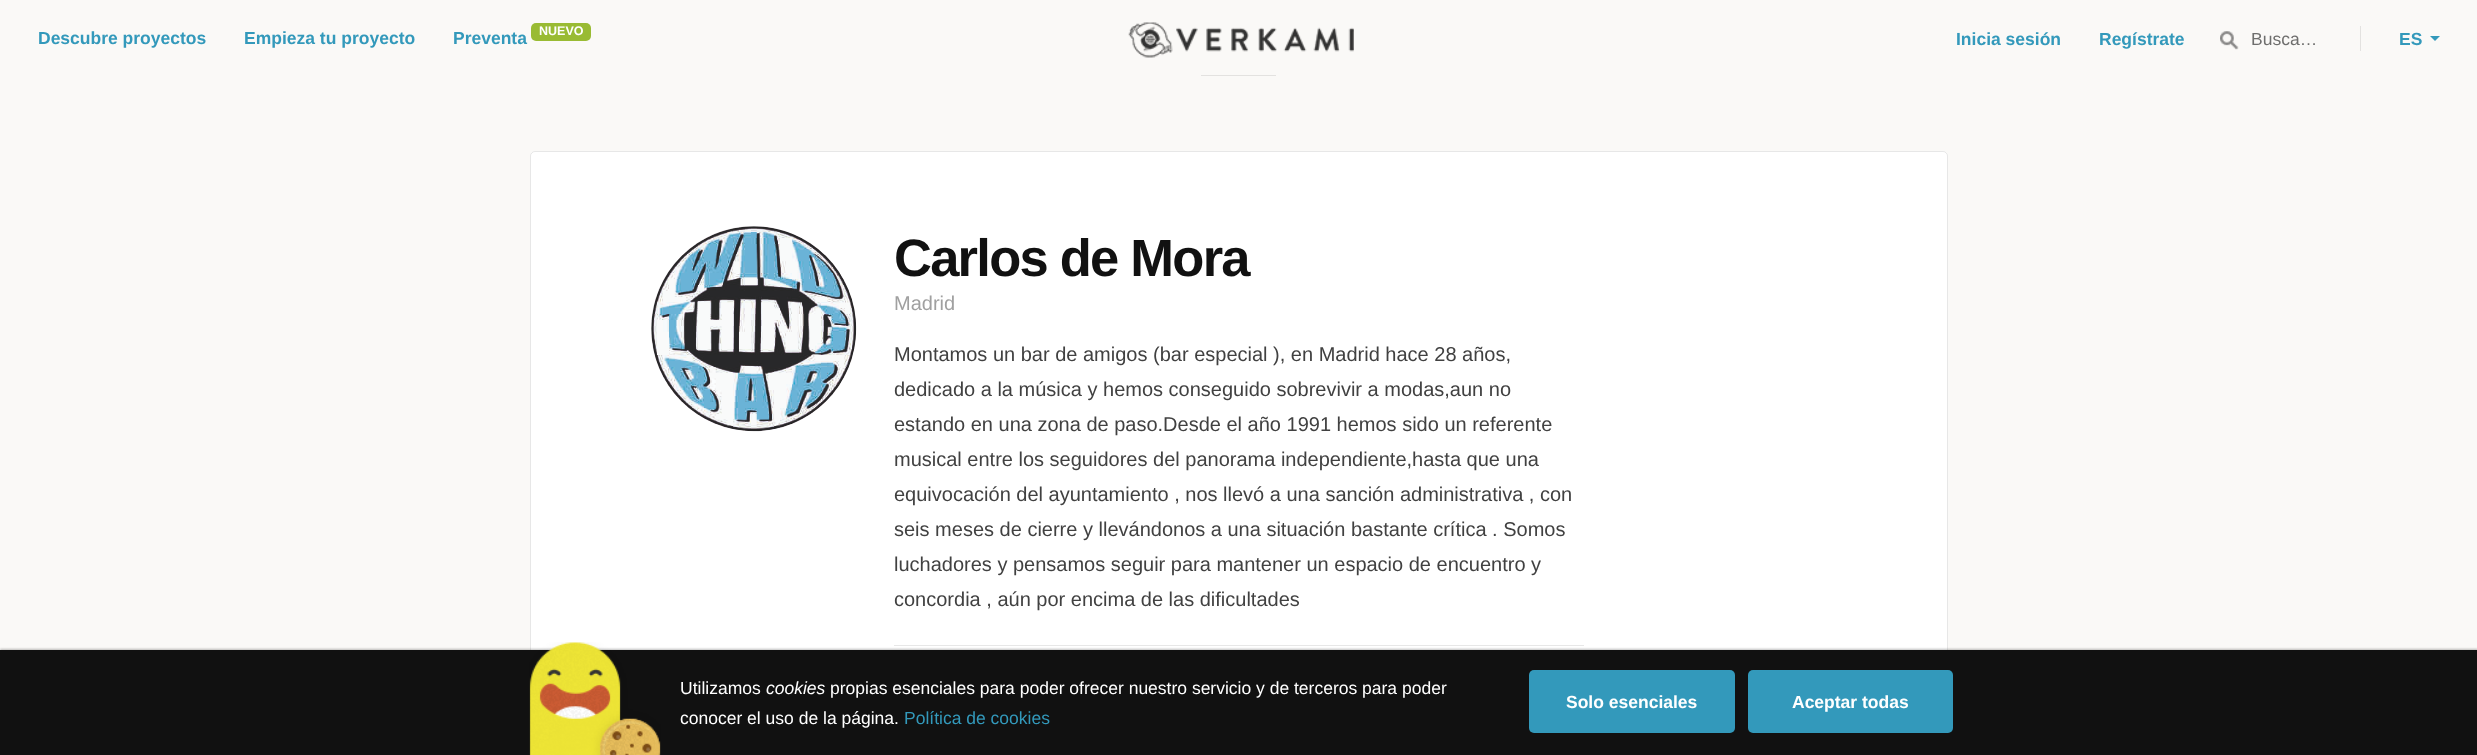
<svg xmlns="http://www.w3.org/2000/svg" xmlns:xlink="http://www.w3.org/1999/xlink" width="2477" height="755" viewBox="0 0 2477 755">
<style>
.cls-1{font:bold 17.5px Liberation Sans;fill:#3399bb}
.cls-2{font:bold 12.5px Liberation Sans;fill:#ffffff}
.cls-3{font:17.5px Liberation Sans;fill:#6e6e6d}
.cls-4{font:bold 52.5px Liberation Sans;letter-spacing:-1.75px;fill:#111111}
.cls-5{font:20px Liberation Sans;fill:#a0a0a0}
.cls-6{font:20px Liberation Sans;fill:#414141}
.cls-7{font:17.5px Liberation Sans;fill:#ffffff}
.cls-8{font:italic 17.5px Liberation Sans;fill:#ffffff}
.cls-9{font:17.5px Liberation Sans;fill:#3399bb}
.cls-10{font:bold 17.5px Liberation Sans;fill:#ffffff}
</style>
<rect width="100%" height="100%" fill="#faf9f7"/>
<rect fill="#99bb33" x="531" y="23" width="60" height="18" rx="5"/>
<image xlink:href="image0.png" x="1128" y="22" width="226" height="36"/>
<image xlink:href="image1.png" x="2220" y="31" width="19" height="19"/>
<rect fill="#e3e2e0" x="2360" y="26" width="1" height="25"/>
<path fill="#3399bb" d="M2430 36H2440L2435 41Z"/>
<rect fill="#e3e2e0" x="1201" y="75" width="75" height="1"/>
<rect fill="#ffffff" x="530" y="151" width="1418" height="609" rx="5"/>
<rect fill="none" stroke="#111111" stroke-opacity="0.1" x="530.5" y="151.5" width="1417" height="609" rx="4.5"/>
<image xlink:href="image2.png" x="651" y="226" width="206" height="206"/>
<circle fill="none" stroke="#111111" stroke-opacity="0.1" cx="753.5" cy="328.5" r="102"/>
<rect fill="#e7e7e7" x="894" y="645" width="690" height="1"/>
<rect fill="#222222" fill-opacity="0.3" filter="blur(1px)" x="0" y="649" width="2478" height="105"/>
<rect fill="#111111" x="0" y="650" width="2477" height="105"/>
<image xlink:href="image3.png" x="529" y="642" width="132" height="113"/>
<rect fill="#3399bb" x="1529" y="670" width="206" height="63" rx="5"/>
<rect fill="#3399bb" x="1748" y="670" width="205" height="63" rx="5"/>
<text class="cls-1" x="38" y="44">Descubre proyectos</text>
<text class="cls-1" x="244" y="44">Empieza tu proyecto</text>
<text class="cls-1" x="453" y="44">Preventa</text>
<text class="cls-2" x="539" y="35">NUEVO</text>
<text class="cls-1" x="1956" y="45">Inicia sesión</text>
<text class="cls-1" x="2099" y="45">Regístrate</text>
<text class="cls-3" x="2251" y="45">Busca…</text>
<text class="cls-1" x="2399" y="45">ES</text>
<text class="cls-4" x="894" y="276">Carlos de Mora</text>
<text class="cls-5" x="894" y="310">Madrid</text>
<text class="cls-6"><tspan x="894" y="361">Montamos un bar de amigos (bar especial ), en Madrid hace 28 años,</tspan><tspan x="894" y="396">dedicado a la música y hemos conseguido sobrevivir a modas,aun no</tspan><tspan x="894" y="431">estando en una zona de paso.Desde el año 1991 hemos sido un referente</tspan><tspan x="894" y="466">musical entre los seguidores del panorama independiente,hasta que una</tspan><tspan x="894" y="501">equivocación del ayuntamiento , nos llevó a una sanción administrativa , con</tspan><tspan x="894" y="536">seis meses de cierre y llevándonos a una situación bastante crítica . Somos</tspan><tspan x="894" y="571">luchadores y pensamos seguir para mantener un espacio de encuentro y</tspan><tspan x="894" y="606">concordia , aún por encima de las dificultades</tspan></text>
<text class="cls-7" x="680" y="694">Utilizamos</text>
<text class="cls-8" x="766" y="694">cookies</text>
<text class="cls-7" x="830" y="694">propias esenciales para poder ofrecer nuestro servicio y de terceros para poder</text>
<text class="cls-7" x="680" y="724">conocer el uso de la página.</text>
<text class="cls-9" x="904" y="724">Política de cookies</text>
<text class="cls-10" x="1566" y="708">Solo esenciales</text>
<text class="cls-10" x="1792" y="708">Aceptar todas</text>
</svg>
